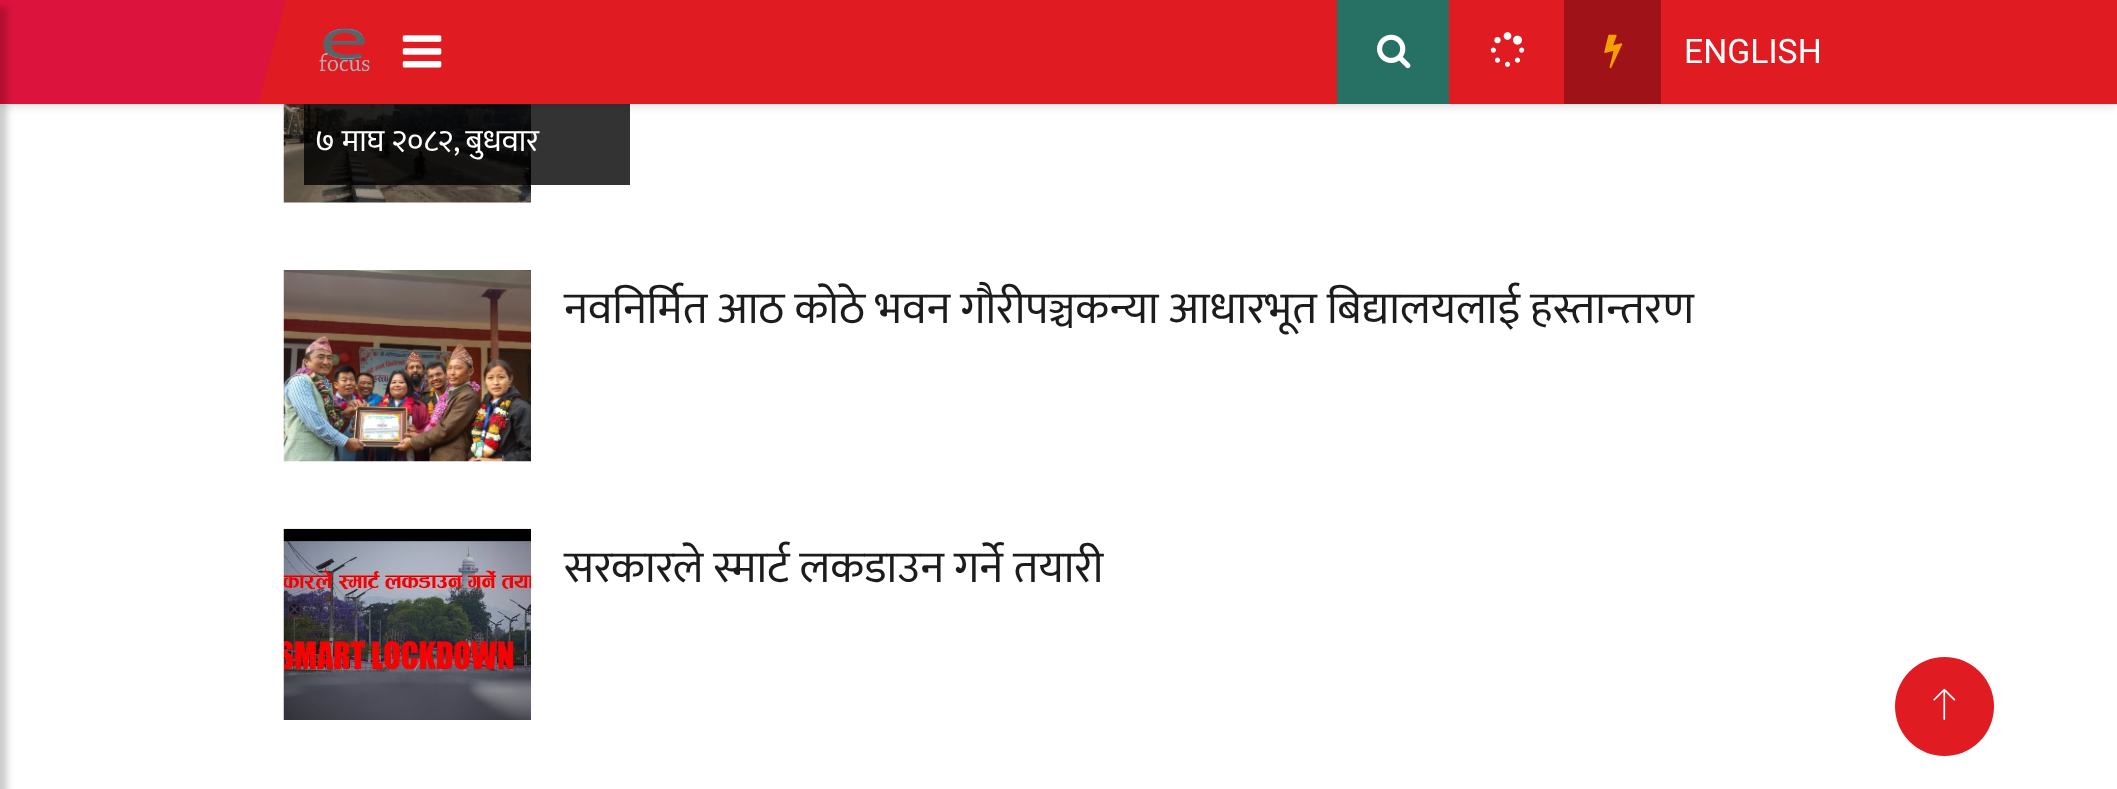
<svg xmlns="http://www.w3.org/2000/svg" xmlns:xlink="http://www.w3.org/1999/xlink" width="2117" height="789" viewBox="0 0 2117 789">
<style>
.cls-1{font:33.75px Roboto;fill:#ffffff}
.cls-2{font:45px Ek Mukta;fill:#1c1c1c}
</style>
<rect width="100%" height="100%" fill="#ffffff"/>
<image xlink:href="image6.png" x="283" y="104" width="248" height="99"/>
<rect fill="#000000" fill-opacity="0.2" filter="blur(5.5px)" x="0" y="0" width="2117" height="104"/>
<rect fill="#e11b22" x="258" y="0" width="1859" height="104"/>
<path fill="#dc133d" d="M-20 0H286L258 104H-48Z"/>
<rect fill="#000000" fill-opacity="0.2" filter="blur(3.5px)" x="-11" y="7" width="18" height="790"/>
<image xlink:href="image0.png" x="319" y="28" width="51" height="44"/>
<rect fill="#000000" fill-opacity="0.8" x="304" y="104" width="326" height="81"/>
<image xlink:href="image1.png" x="316" y="130" width="224" height="30"/>
<image xlink:href="image2.png" x="402" y="35" width="40" height="33"/>
<rect fill="#267163" x="1337" y="0" width="112" height="104"/>
<image xlink:href="image3.png" x="1377" y="34" width="34" height="35"/>
<image xlink:href="image4.png" x="1490" y="32" width="35" height="35"/>
<rect fill="#9f1217" x="1564" y="0" width="97" height="104"/>
<image xlink:href="image5.png" x="1604" y="34" width="19" height="35"/>
<image xlink:href="image7.png" x="283" y="270" width="248" height="192"/>
<image xlink:href="image8.png" x="283" y="528" width="248" height="192"/>
<circle fill="#e11b22" cx="1944.5" cy="706.5" r="49.5"/>
<image xlink:href="image9.png" x="1933" y="688" width="23" height="32"/>
<text class="cls-1" x="1684" y="63">ENGLISH</text>
<text class="cls-2" x="564" y="323">नवनिर्मित आठ कोठे भवन गौरीपञ्चकन्या आधारभूत बिद्यालयलाई हस्तान्तरण</text>
<text class="cls-2" x="564" y="582">सरकारले स्मार्ट लकडाउन गर्ने तयारी</text>
</svg>
